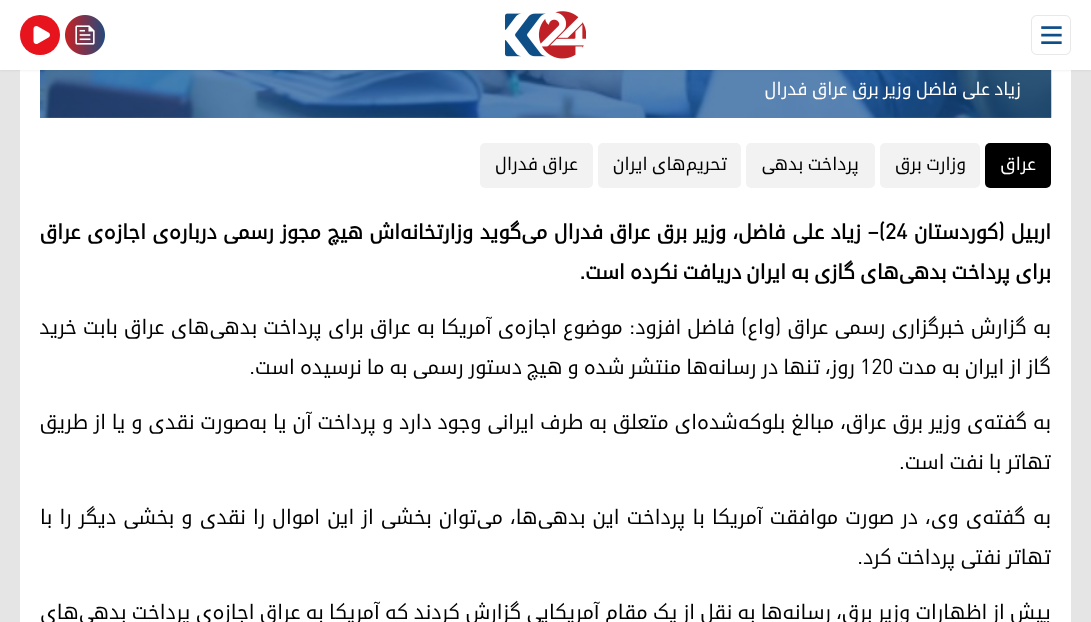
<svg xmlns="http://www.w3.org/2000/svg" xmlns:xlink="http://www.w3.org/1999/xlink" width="1091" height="622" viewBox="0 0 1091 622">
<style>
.cls-1{font:17.5px 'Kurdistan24';direction:rtl;fill:#ffffff}
.cls-2{font:17.5px 'Kurdistan24';direction:rtl;fill:#000000}
.cls-3{font:bold 20px 'Kurdistan24';direction:rtl;fill:#000000}
.cls-4{font:bold 20px 'Kurdistan24';fill:#000000}
.cls-5{font:20px 'Kurdistan24';direction:rtl;fill:#000000}
.cls-6{font:20px 'Kurdistan24';fill:#000000}
</style>
<rect width="100%" height="100%" fill="#e5e5e5"/>
<rect fill="#ffffff" x="20" y="70" width="1051" height="552"/>
<image xlink:href="image3.png" x="40" y="70" width="1012" height="48"/>
<rect fill="#124e90" fill-opacity="0.7" x="40" y="70" width="1011" height="48"/>
<rect fill="#000000" fill-opacity="0.05" filter="blur(1px)" x="0" y="1" width="1091" height="70"/>
<rect fill="#ffffff" x="0" y="0" width="1091" height="70"/>
<image xlink:href="image0.png" x="1031" y="15" width="40" height="40"/>
<image xlink:href="image1.png" x="505" y="11" width="81" height="48"/>
<image xlink:href="image2.png" x="65" y="15" width="40" height="40"/>
<circle fill="#e7131d" cx="40" cy="35" r="20"/>
<path fill="#ffffff" d="M48.5 32.5C50.5 33.5 50.5 36.5 48.5 37.5L38 43.5C36 45 33.5 43.5 33.5 41V29C33.5 26.5 36 25 38 26.5Z"/>
<rect fill="#000000" x="985" y="143" width="66" height="45" rx="5"/>
<rect fill="#f2f2f2" x="880" y="143" width="100" height="45" rx="5"/>
<rect fill="#f2f2f2" x="746" y="143" width="129" height="45" rx="5"/>
<rect fill="#f2f2f2" x="598" y="143" width="143" height="45" rx="5"/>
<rect fill="#f2f2f2" x="480" y="143" width="113" height="45" rx="5"/>
<text class="cls-1" x="1021" y="95">زیاد علی فاضل وزیر برق عراق فدرال</text>
<text class="cls-1" x="1036" y="170">عراق</text>
<text class="cls-2" x="966" y="170">وزارت برق</text>
<text class="cls-2" x="859" y="170">پرداخت بدهی</text>
<text class="cls-2" x="727" y="170">تحریم‌های ایران</text>
<text class="cls-2" x="578" y="170">عراق فدرال</text>
<text class="cls-3" x="1051" y="239" word-spacing="1.4">اربیل (کوردستان</text>
<text class="cls-4" x="885" y="239">۲۴</text>
<text class="cls-3" x="885" y="239" word-spacing="1.4">)– زیاد علی فاضل، وزیر برق عراق فدرال می‌گوید وزارتخانه‌اش هیچ مجوز رسمی درباره‌ی اجازه‌ی عراق</text>
<text class="cls-3" x="1051" y="279">برای پرداخت بدهی‌های گازی به ایران دریافت نکرده است.</text>
<text class="cls-5" x="1051" y="334" word-spacing="1.1">به گزارش خبرگزاری رسمی عراق (واع) فاضل افزود: موضوع اجازه‌ی آمریکا به عراق برای پرداخت بدهی‌های عراق بابت خرید</text>
<text class="cls-5" x="1051" y="374">گاز از ایران به مدت</text>
<text class="cls-6" x="860" y="374">۱۲۰</text>
<text class="cls-5" x="855" y="374">روز، تنها در رسانه‌ها منتشر شده و هیچ دستور رسمی به ما نرسیده است.</text>
<text class="cls-5" x="1051" y="429" word-spacing="0.8">به گفته‌ی وزیر برق عراق، مبالغ بلوکه‌شده‌ای متعلق به طرف ایرانی وجود دارد و پرداخت آن یا به‌صورت نقدی و یا از طریق</text>
<text class="cls-5" x="1051" y="469">تهاتر با نفت است.</text>
<text class="cls-5" x="1051" y="524" word-spacing="2.1">به گفته‌ی وی، در صورت موافقت آمریکا با پرداخت این بدهی‌ها، می‌توان بخشی از این اموال را نقدی و بخشی دیگر را با</text>
<text class="cls-5" x="1051" y="564">تهاتر نفتی پرداخت کرد.</text>
<text class="cls-5" x="1051" y="619" word-spacing="0.25">پیش از اظهارات وزیر برق، رسانه‌ها به نقل از یک مقام آمریکایی گزارش کردند که آمریکا به عراق اجازه‌ی پرداخت بدهی‌های</text>
</svg>
